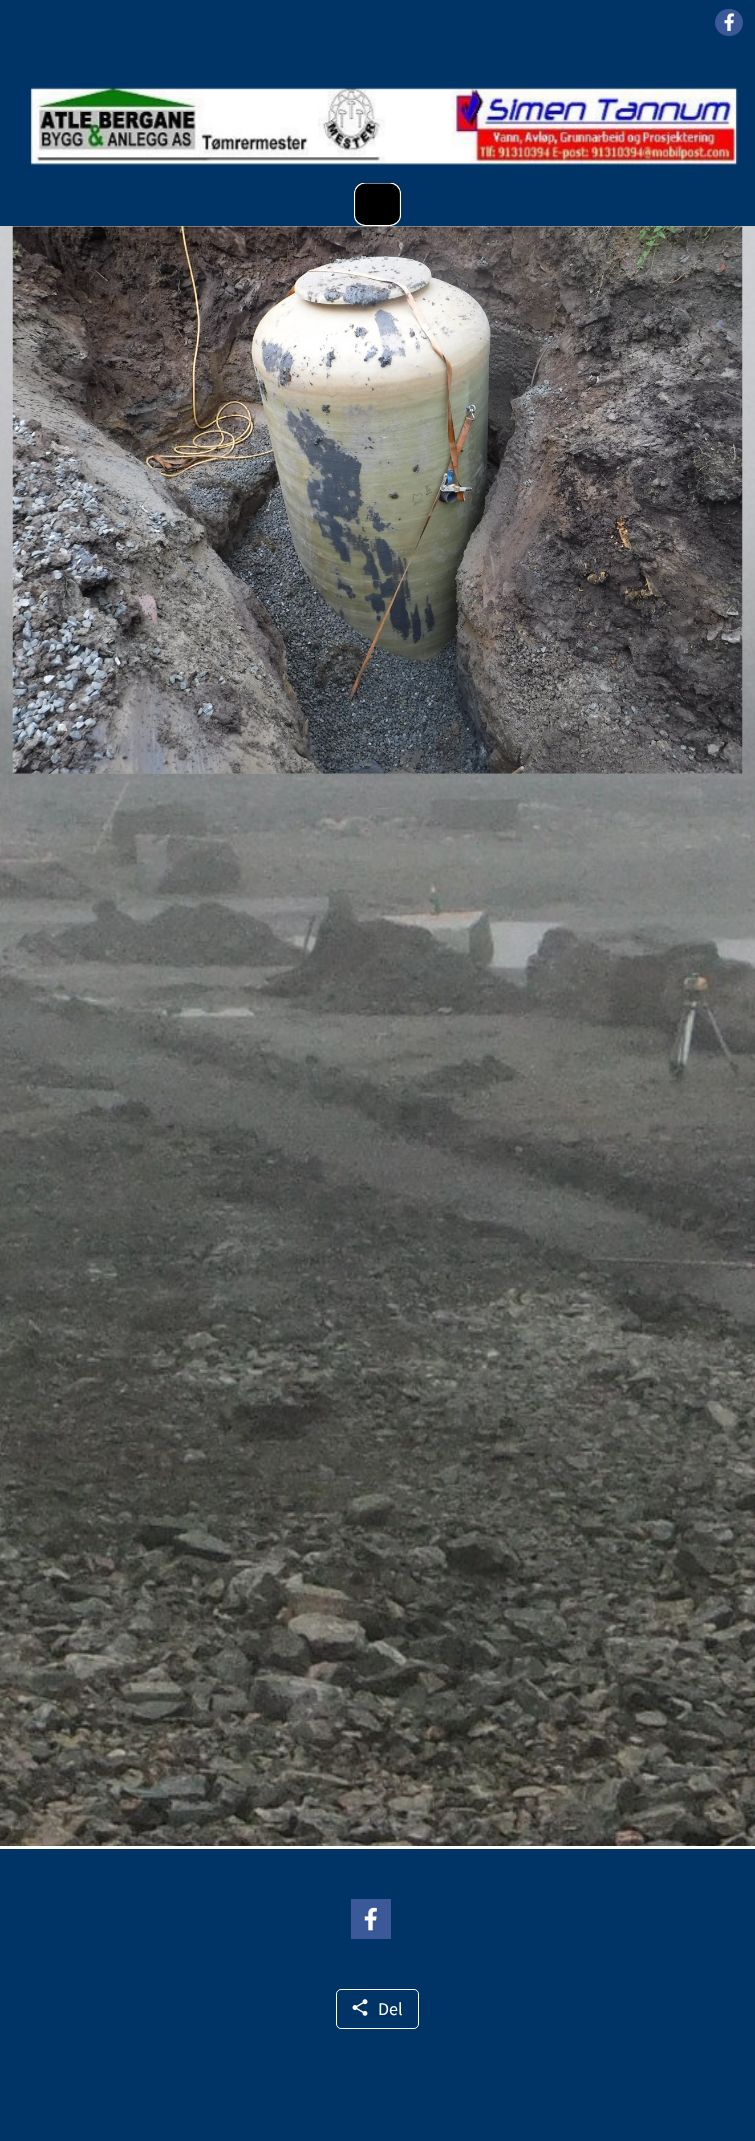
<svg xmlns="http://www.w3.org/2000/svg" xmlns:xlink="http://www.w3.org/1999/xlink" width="755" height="2141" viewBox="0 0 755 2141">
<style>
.cls-1{font:18px Source Sans Pro;fill:#ffffff}
</style>
<defs>
<clipPath id="clip1"><rect x="354" y="183" width="47" height="43"/></clipPath>
</defs>
<rect width="100%" height="100%" fill="#ffffff"/>
<image xlink:href="image0.png" x="0" y="226" width="755" height="1620"/>
<rect fill="#003466" x="0" y="0" width="755" height="226"/>
<rect fill="#3b5998" x="715" y="9" width="28" height="27" rx="13.5"/>
<image xlink:href="image1.png" x="724" y="13" width="10" height="18"/>
<image xlink:href="image2.png" x="30" y="87" width="708" height="78"/>
<g clip-path="url(#clip1)">
<path fill="#000000" d="M366 182H389C396 182 401 187 401 193V215C401 221 396 226 389 226H366C359 226 354 221 354 215V193C354 187 359 182 366 182Z"/>
<path fill="none" stroke="#ffffff" stroke-width="1.2" d="M365.5 183H389.5C395.5 183 400.5 187.5 400.5 193.5V215.5C400.5 221 395.5 225.5 389.5 225.5H365.5C359.5 225.5 354.5 221 354.5 215.5V193.5C354.5 187.5 359.5 183 365.5 183Z"/>
</g>
<image xlink:href="image3.png" x="12" y="226" width="731" height="548"/>
<rect fill="#003466" x="0" y="1849" width="755" height="292"/>
<rect fill="#3b5998" x="351" y="1899" width="40" height="40"/>
<image xlink:href="image4.png" x="364" y="1907" width="13" height="24"/>
<rect fill="none" stroke="#ffffff" x="336.5" y="1989.5" width="82" height="39" rx="4.5"/>
<image xlink:href="image5.png" x="352" y="1999" width="16" height="17"/>
<text class="cls-1" x="378" y="2015">Del</text>
</svg>
